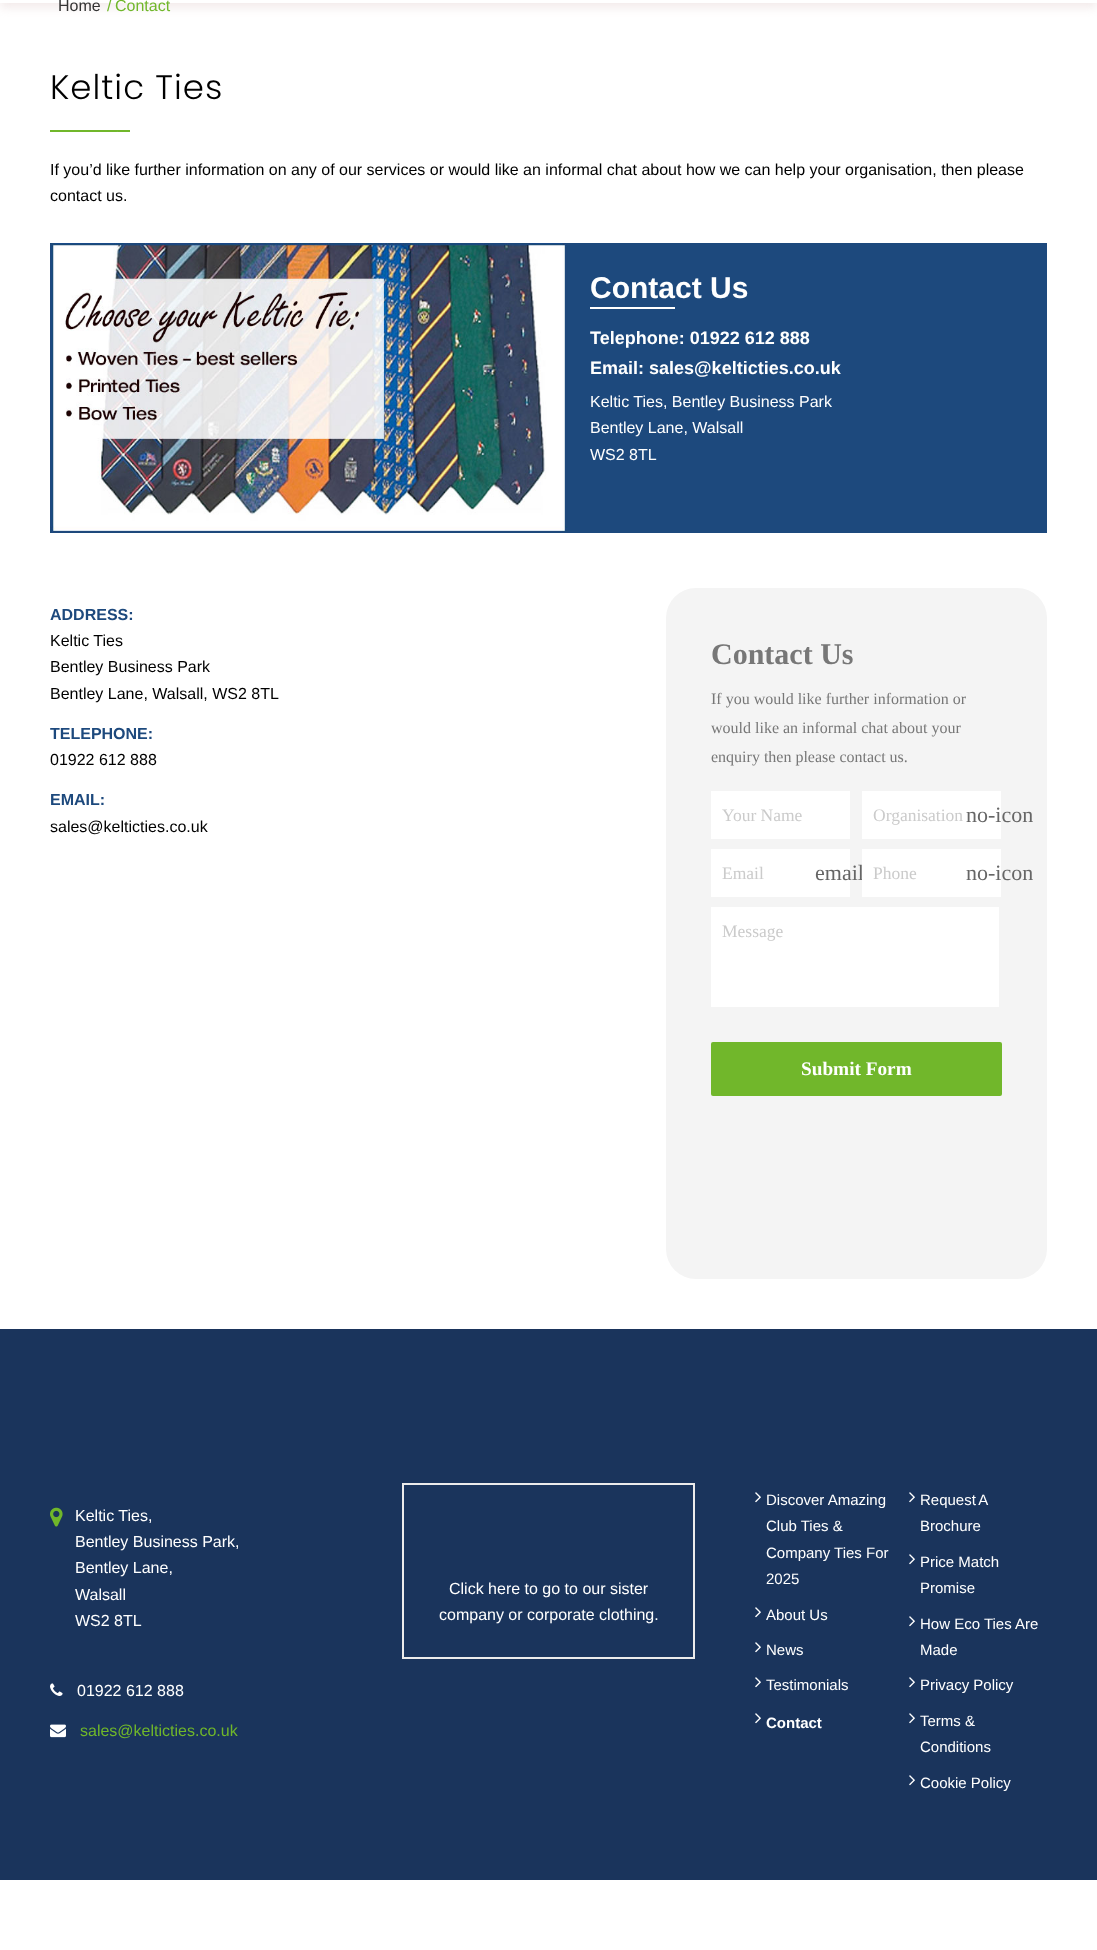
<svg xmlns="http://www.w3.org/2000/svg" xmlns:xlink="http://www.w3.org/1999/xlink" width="1097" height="1950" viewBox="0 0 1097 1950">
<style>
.cls-1{font:16px Liberation Sans;fill:#333333}
.cls-2{font:16px Liberation Sans;fill:#70b72a}
.cls-3{font:300 34px Poppins;letter-spacing:1px;fill:#000000}
.cls-4{font:16px Liberation Sans;fill:#000000}
.cls-5{font:bold 30px Liberation Sans;fill:#ffffff}
.cls-6{font:bold 18px Liberation Sans;fill:#ffffff}
.cls-7{font:16px Liberation Sans;fill:#ffffff}
.cls-8{font:bold 16px Liberation Sans;fill:#1d497d}
.cls-9{font:bold 30px Liberation Serif;fill:#777777}
.cls-10{font:16px Liberation Serif;fill:#777777}
.cls-11{font:17.5px Liberation Serif;fill:#cbcbcb}
.cls-12{font:22px Liberation Serif;fill:#666666}
.cls-13{font:bold 19.25px Liberation Serif;fill:#ffffff}
.cls-14{font:15px Liberation Sans;fill:#ffffff}
.cls-15{font:bold 15px Liberation Sans;fill:#ffffff}
</style>
<defs>
<clipPath id="clip1"><rect x="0" y="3" width="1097" height="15"/></clipPath>
</defs>
<rect width="100%" height="100%" fill="#ffffff"/>
<g clip-path="url(#clip1)">
<rect fill="#f3ebeb" filter="blur(5px)" x="0" y="-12" width="1097" height="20"/>
</g>
<image xlink:href="image0.png" x="50" y="130" width="80" height="2"/>
<image xlink:href="image1.png" x="50" y="243" width="518" height="290"/>
<rect fill="#1d497d" x="568" y="243" width="479" height="290"/>
<rect fill="#ffffff" x="590" y="307" width="85" height="2"/>
<rect fill="#f4f4f4" x="666" y="588" width="381" height="691" rx="30"/>
<rect fill="#ffffff" x="711" y="791" width="139" height="48"/>
<rect fill="#ffffff" x="862" y="791" width="139" height="48"/>
<rect fill="#ffffff" x="711" y="849" width="139" height="48"/>
<rect fill="#ffffff" x="711" y="907" width="288" height="100"/>
<rect fill="#71b72b" x="711" y="1042" width="291" height="54" rx="2"/>
<rect fill="#1a345c" x="0" y="1329" width="1097" height="551"/>
<image xlink:href="image2.png" x="50" y="1507" width="13" height="20"/>
<image xlink:href="image3.png" x="50" y="1683" width="13" height="13"/>
<image xlink:href="image4.png" x="50" y="1724" width="16" height="14"/>
<rect fill="none" stroke="#ebebeb" stroke-width="2" x="403" y="1484" width="291" height="174"/>
<image xlink:href="image5.png" x="755" y="1492" width="6" height="11"/>
<image xlink:href="image5.png" x="909" y="1492" width="6" height="11"/>
<image xlink:href="image5.png" x="909" y="1554" width="6" height="11"/>
<image xlink:href="image5.png" x="755" y="1607" width="6" height="11"/>
<image xlink:href="image5.png" x="755" y="1642" width="6" height="11"/>
<image xlink:href="image5.png" x="909" y="1616" width="6" height="11"/>
<image xlink:href="image5.png" x="755" y="1677" width="6" height="11"/>
<image xlink:href="image5.png" x="909" y="1677" width="6" height="11"/>
<image xlink:href="image5.png" x="755" y="1713" width="6" height="11"/>
<image xlink:href="image5.png" x="909" y="1713" width="6" height="11"/>
<image xlink:href="image5.png" x="909" y="1775" width="6" height="11"/>
<text class="cls-1" x="58" y="11">Home</text>
<text class="cls-2" x="107" y="11">/</text>
<text class="cls-2" x="115" y="11">Contact</text>
<text class="cls-3" x="50" y="99">Keltic Ties</text>
<text class="cls-4"><tspan x="50" y="175">If you’d like further information on any of our services or would like an informal chat about how we can help your organisation, then please</tspan><tspan x="50" y="201">contact us.</tspan></text>
<text class="cls-5" x="590" y="298">Contact Us</text>
<text class="cls-6"><tspan x="590" y="344">Telephone: 01922 612 888</tspan><tspan x="590" y="374">Email: sales@kelticties.co.uk</tspan></text>
<text class="cls-7"><tspan x="590" y="407">Keltic Ties, Bentley Business Park</tspan><tspan x="590" y="433">Bentley Lane, Walsall</tspan><tspan x="590" y="460">WS2 8TL</tspan></text>
<text class="cls-8" x="50" y="620">ADDRESS:</text>
<text class="cls-4"><tspan x="50" y="646">Keltic Ties</tspan><tspan x="50" y="672">Bentley Business Park</tspan><tspan x="50" y="699">Bentley Lane, Walsall, WS2 8TL</tspan></text>
<text class="cls-8" x="50" y="739">TELEPHONE:</text>
<text class="cls-4" x="50" y="765">01922 612 888</text>
<text class="cls-8" x="50" y="805">EMAIL:</text>
<text class="cls-4" x="50" y="832">sales@kelticties.co.uk</text>
<text class="cls-9" x="711" y="664">Contact Us</text>
<text class="cls-10"><tspan x="711" y="704">If you would like further information or</tspan><tspan x="711" y="733">would like an informal chat about your</tspan><tspan x="711" y="762">enquiry then please contact us.</tspan></text>
<text class="cls-11" x="722" y="821">Your Name</text>
<text class="cls-11" x="873" y="821">Organisation</text>
<text class="cls-12" x="966" y="822">no-icon</text>
<text class="cls-11" x="722" y="879">Email</text>
<text class="cls-12" x="815" y="880">email</text>
<rect fill="#ffffff" x="862" y="849" width="139" height="48"/>
<text class="cls-11" x="873" y="879">Phone</text>
<text class="cls-12" x="966" y="880">no-icon</text>
<text class="cls-11" x="722" y="937">Message</text>
<text class="cls-13" x="801" y="1075">Submit Form</text>
<text class="cls-7"><tspan x="75" y="1521">Keltic Ties,</tspan><tspan x="75" y="1547">Bentley Business Park,</tspan><tspan x="75" y="1573">Bentley Lane,</tspan><tspan x="75" y="1600">Walsall</tspan><tspan x="75" y="1626">WS2 8TL</tspan></text>
<text class="cls-7" x="77" y="1696">01922 612 888</text>
<text class="cls-2" x="80" y="1736">sales@kelticties.co.uk</text>
<text class="cls-7" x="449" y="1594">Click here to go to our sister</text>
<text class="cls-7" x="439" y="1620">company or corporate clothing.</text>
<text class="cls-14"><tspan x="766" y="1505">Discover Amazing</tspan><tspan x="766" y="1531">Club Ties &amp;</tspan><tspan x="766" y="1558">Company Ties For</tspan><tspan x="766" y="1584">2025</tspan></text>
<text class="cls-14"><tspan x="920" y="1505" word-spacing="-1">Request A</tspan><tspan x="920" y="1531">Brochure</tspan></text>
<text class="cls-14"><tspan x="920" y="1567">Price Match</tspan><tspan x="920" y="1593">Promise</tspan></text>
<text class="cls-14" x="766" y="1620">About Us</text>
<text class="cls-14" x="766" y="1655">News</text>
<text class="cls-14"><tspan x="920" y="1629">How Eco Ties Are</tspan><tspan x="920" y="1655">Made</tspan></text>
<text class="cls-14" x="766" y="1690">Testimonials</text>
<text class="cls-14" x="920" y="1690">Privacy Policy</text>
<text class="cls-15" x="766" y="1728">Contact</text>
<text class="cls-14"><tspan x="920" y="1726">Terms &amp;</tspan><tspan x="920" y="1752">Conditions</tspan></text>
<text class="cls-14" x="920" y="1788">Cookie Policy</text>
</svg>
